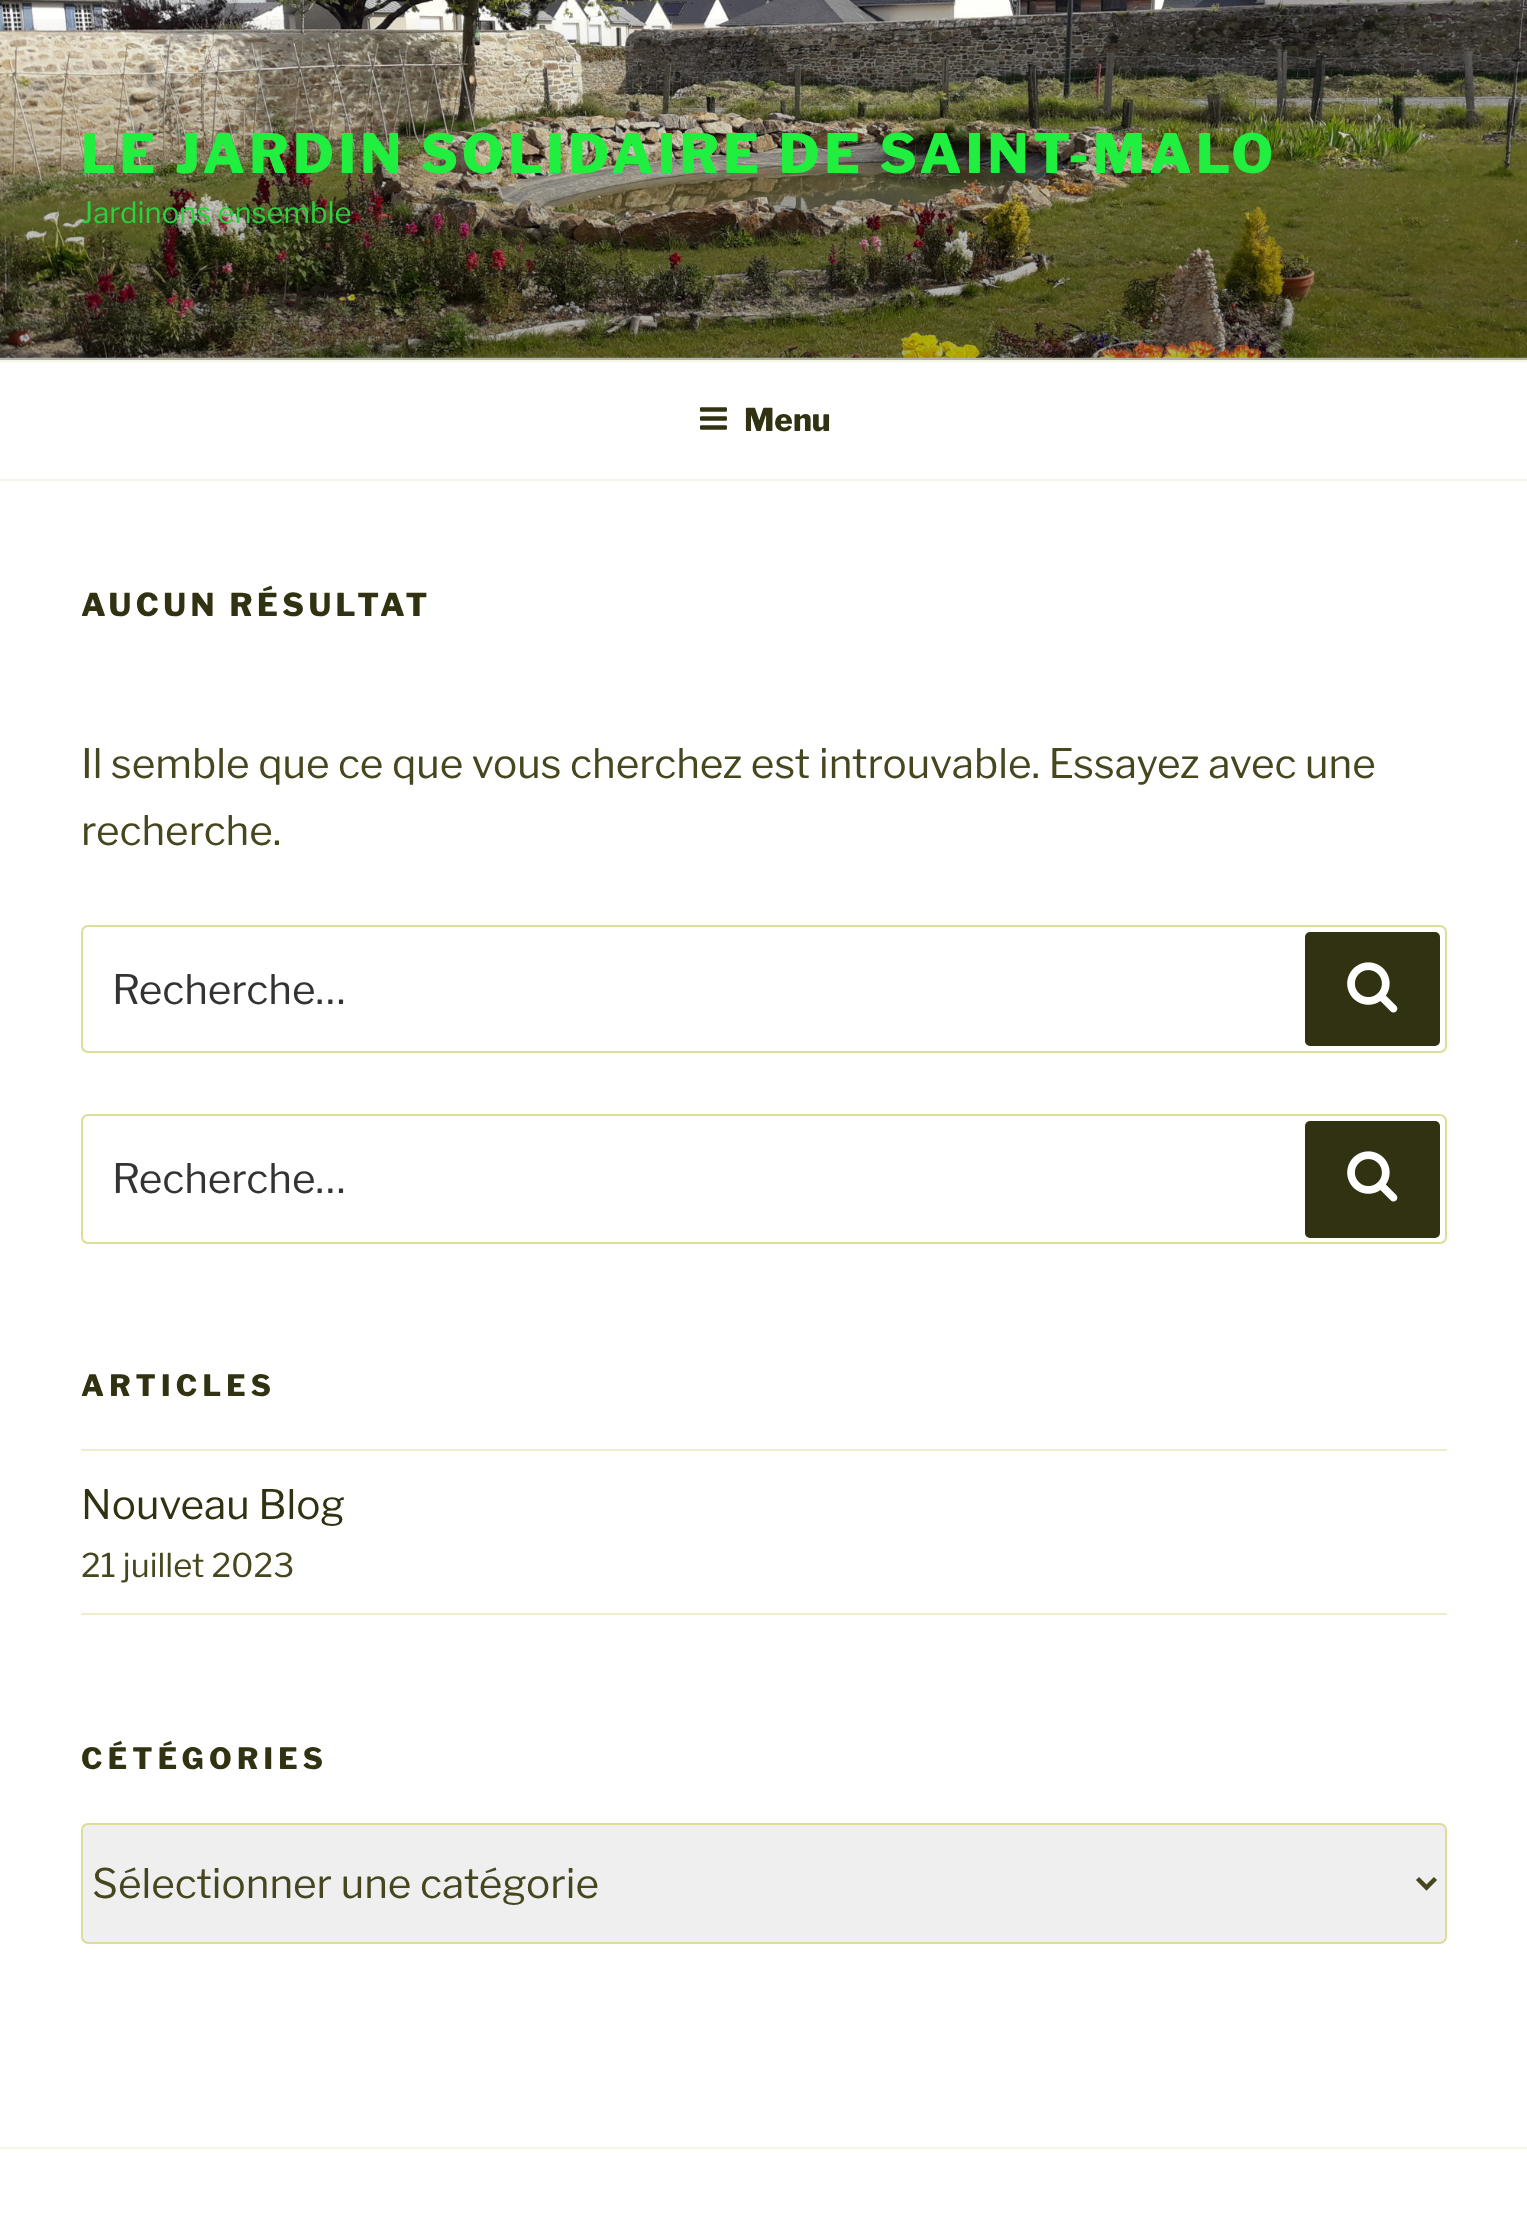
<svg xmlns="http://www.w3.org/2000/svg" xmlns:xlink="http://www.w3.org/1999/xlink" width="1527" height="2224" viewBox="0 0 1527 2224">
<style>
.cls-1{font:800 54px Libre Franklin;letter-spacing:4.3px;fill:#21ef40}
.cls-2{font:29.25px Libre Franklin;fill:#2cd13e}
.cls-3{font:800 31.5px Libre Franklin;fill:#313211}
.cls-4{font:800 31.5px Libre Franklin;letter-spacing:4.4px;fill:#313211}
.cls-5{font:40.5px Libre Franklin;fill:#47471f}
.cls-6{font:40.5px Libre Franklin;fill:#333333}
.cls-7{font:800 29.25px Libre Franklin;letter-spacing:5.25px;fill:#313211}
.cls-8{font:40.5px Libre Franklin;fill:#313211}
.cls-9{font:32.75px Libre Franklin;fill:#47471f}
</style>
<defs>
<linearGradient id="g1" gradientUnits="userSpaceOnUse" x1="764" y1="0" x2="764" y2="360"><stop offset="0" stop-color="#000000" stop-opacity="0"/><stop offset="0.75" stop-color="#000000" stop-opacity="0.3"/><stop offset="1" stop-color="#000000" stop-opacity="0.3"/></linearGradient>
</defs>
<rect width="100%" height="100%" fill="#ffffff"/>
<rect fill="#fcfcf7" x="0" y="357" width="1527" height="3"/>
<image xlink:href="image0.png" x="0" y="0" width="1527" height="358"/>
<rect fill="url(#g1)" x="0" y="19" width="1527" height="341"/>
<rect fill="#f6f6e4" x="0" y="360" width="1527" height="2"/>
<rect fill="#f6f6e4" x="0" y="479" width="1527" height="2"/>
<image xlink:href="image1.png" x="699" y="407" width="28" height="23"/>
<rect fill="none" stroke="#dbdd98" stroke-width="2" x="82" y="926" width="1364" height="126" rx="6"/>
<rect fill="#313211" x="1305" y="932" width="135" height="114" rx="5"/>
<image xlink:href="image2.png" x="1347" y="962" width="51" height="51"/>
<rect fill="none" stroke="#dbdd98" stroke-width="2" x="82" y="1115" width="1364" height="128" rx="6"/>
<rect fill="#313211" x="1305" y="1121" width="135" height="117" rx="5"/>
<image xlink:href="image2.png" x="1347" y="1151" width="51" height="51"/>
<rect fill="#eeeecd" x="81" y="1449" width="1366" height="2"/>
<rect fill="#eeeecd" x="81" y="1613" width="1366" height="2"/>
<rect fill="#efefef" stroke="#dbdd98" stroke-width="2" x="82" y="1824" width="1364" height="119" rx="6"/>
<path fill="none" stroke="#47471f" stroke-width="4.5" d="M1417.5 1878.5L1426.5 1887.5L1435.5 1878.5"/>
<rect fill="#f6f6e4" x="0" y="2147" width="1527" height="2"/>
<text class="cls-1" x="81" y="173">LE JARDIN SOLIDAIRE DE SAINT-MALO</text>
<text class="cls-2" x="81" y="223">Jardinons ensemble</text>
<text class="cls-3" x="744" y="431">Menu</text>
<text class="cls-4" x="81" y="616">AUCUN RÉSULTAT</text>
<text class="cls-5"><tspan x="81" y="778">Il semble que ce que vous cherchez est introuvable. Essayez avec une</tspan><tspan x="81" y="845">recherche.</tspan></text>
<text class="cls-6" x="112" y="1004">Recherche…</text>
<text class="cls-6" x="112" y="1193">Recherche…</text>
<text class="cls-7" x="81" y="1396">ARTICLES</text>
<text class="cls-8" x="81" y="1519">Nouveau Blog</text>
<text class="cls-9" x="81" y="1577">21 juillet 2023</text>
<text class="cls-7" x="81" y="1769">CÉTÉGORIES</text>
<text class="cls-5" x="92" y="1898">Sélectionner une catégorie</text>
</svg>
